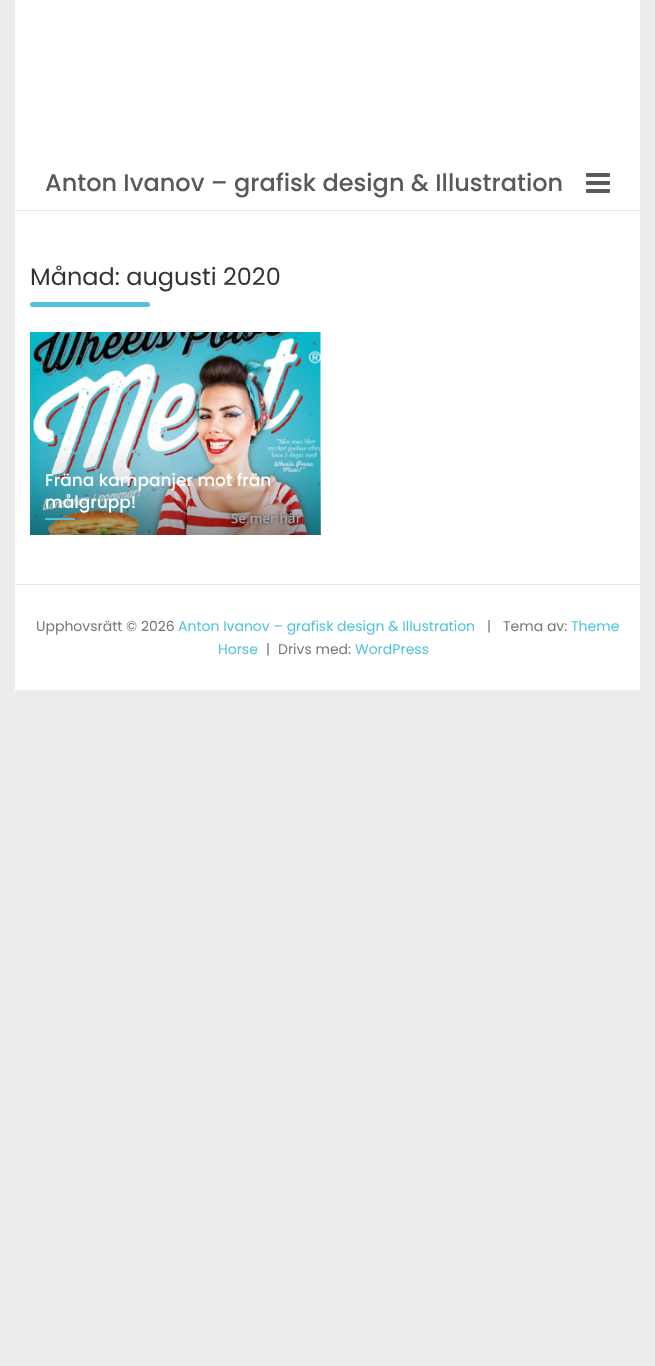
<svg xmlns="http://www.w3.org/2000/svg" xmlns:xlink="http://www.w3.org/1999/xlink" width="655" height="1366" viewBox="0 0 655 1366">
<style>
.cls-1{font:500 24px Poppins;fill:#595959}
.cls-2{font:24px Poppins;fill:#333333}
.cls-3{font:500 17px Poppins;fill:#ffffff}
.cls-4{font:14px Poppins;fill:#777777}
.cls-5{font:14px Poppins;fill:#50c3dc}
</style>
<rect width="100%" height="100%" fill="#ededed"/>
<rect fill="#ffffff" x="15" y="0" width="625" height="690"/>
<rect fill="#e6e6e6" x="15" y="210" width="625" height="1"/>
<image xlink:href="image0.png" x="586" y="173" width="24" height="20"/>
<rect fill="#50c3dc" x="30" y="302" width="120" height="5" rx="2.5"/>
<image xlink:href="image1.png" x="30" y="332" width="291" height="203"/>
<rect fill="#50c3dc" x="45" y="518" width="30" height="2" rx="1"/>
<rect fill="#e6e6e6" x="15" y="584" width="625" height="1"/>
<text class="cls-1" x="45" y="191">Anton Ivanov – grafisk design &amp; Illustration</text>
<text class="cls-2" x="30" y="285">Månad: augusti 2020</text>
<text class="cls-3"><tspan x="45" y="486">Fräna kampanjer mot frän</tspan><tspan x="45" y="508">målgrupp!</tspan></text>
<text class="cls-4" x="36" y="631">Upphovsrätt © 2026</text>
<text class="cls-5" x="178" y="631">Anton Ivanov – grafisk design &amp; Illustration</text>
<text class="cls-4" x="487" y="631">|</text>
<text class="cls-4" x="503" y="631">Tema av:</text>
<text class="cls-5" x="571" y="631">Theme</text>
<text class="cls-5" x="218" y="654">Horse</text>
<text class="cls-4" x="266" y="654">|</text>
<text class="cls-4" x="278" y="654">Drivs med:</text>
<text class="cls-5" x="355" y="654">WordPress</text>
</svg>
